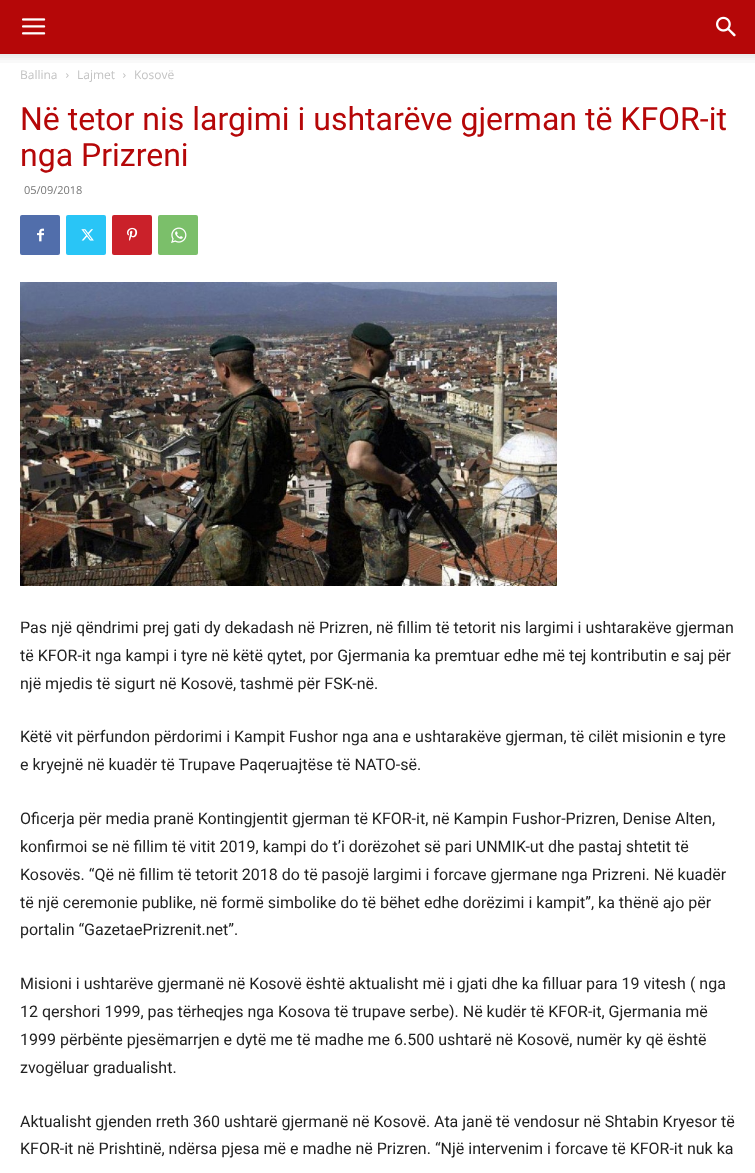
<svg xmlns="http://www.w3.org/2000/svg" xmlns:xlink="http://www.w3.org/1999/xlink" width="755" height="1173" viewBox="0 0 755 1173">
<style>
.cls-1{font:12px Open Sans;fill:#c3c3c3}
.cls-2{font:32px Roboto;fill:#b50708}
.cls-3{font:11px Open Sans;fill:#767676}
.cls-4{font:16px Roboto;fill:#222222}
</style>
<rect width="100%" height="100%" fill="#ffffff"/>
<rect fill="#b50708" x="0" y="0" width="755" height="54"/>
<image xlink:href="image0.png" x="22" y="18" width="24" height="17"/>
<image xlink:href="image1.png" x="716" y="16" width="20" height="21"/>
<image xlink:href="image2.png" x="0" y="54" width="755" height="9"/>
<image xlink:href="image3.png" x="66" y="73" width="3" height="5"/>
<image xlink:href="image3.png" x="123" y="73" width="3" height="5"/>
<rect fill="#516eab" x="20" y="215" width="40" height="40" rx="2"/>
<image xlink:href="image4.png" x="37" y="228" width="7" height="14"/>
<rect fill="#29c5f6" x="66" y="215" width="40" height="40" rx="2"/>
<image xlink:href="image5.png" x="81" y="229" width="13" height="12"/>
<rect fill="#ca212a" x="112" y="215" width="40" height="40" rx="2"/>
<image xlink:href="image6.png" x="127" y="227" width="11" height="14"/>
<rect fill="#7bbf6a" x="158" y="215" width="40" height="40" rx="2"/>
<image xlink:href="image7.png" x="171" y="227" width="16" height="16"/>
<image xlink:href="image8.png" x="20" y="282" width="537" height="304"/>
<text class="cls-1" x="20" y="79">Ballina</text>
<text class="cls-1" x="77" y="79">Lajmet</text>
<text class="cls-1" x="134" y="79">Kosovë</text>
<text class="cls-2"><tspan x="20" y="130">Në tetor nis largimi i ushtarëve gjerman të KFOR-it</tspan><tspan x="20" y="166">nga Prizreni</tspan></text>
<text class="cls-3" x="24" y="194">05/09/2018</text>
<text class="cls-4"><tspan x="20" y="633">Pas një qëndrimi prej gati dy dekadash në Prizren, në fillim të tetorit nis largimi i ushtarakëve gjerman</tspan><tspan x="20" y="661">të KFOR-it nga kampi i tyre në këtë qytet, por Gjermania ka premtuar edhe më tej kontributin e saj për</tspan><tspan x="20" y="689">një mjedis të sigurt në Kosovë, tashmë për FSK-në.</tspan></text>
<text class="cls-4"><tspan x="20" y="742">Këtë vit përfundon përdorimi i Kampit Fushor nga ana e ushtarakëve gjerman, të cilët misionin e tyre</tspan><tspan x="20" y="770">e kryejnë në kuadër të Trupave Paqeruajtëse të NATO-së.</tspan></text>
<text class="cls-4"><tspan x="20" y="824">Oficerja për media pranë Kontingjentit gjerman të KFOR-it, në Kampin Fushor-Prizren, Denise Alten,</tspan><tspan x="20" y="852">konfirmoi se në fillim të vitit 2019, kampi do t’i dorëzohet së pari UNMIK-ut dhe pastaj shtetit të</tspan><tspan x="20" y="880">Kosovës. “Që në fillim të tetorit 2018 do të pasojë largimi i forcave gjermane nga Prizreni. Në kuadër</tspan><tspan x="20" y="908">të një ceremonie publike, në formë simbolike do të bëhet edhe dorëzimi i kampit”, ka thënë ajo për</tspan><tspan x="20" y="935">portalin “GazetaePrizrenit.net”.</tspan></text>
<text class="cls-4"><tspan x="20" y="989">Misioni i ushtarëve gjermanë në Kosovë është aktualisht më i gjati dhe ka filluar para 19 vitesh ( nga</tspan><tspan x="20" y="1017">12 qershori 1999, pas tërheqjes nga Kosova të trupave serbe). Në kudër të KFOR-it, Gjermania më</tspan><tspan x="20" y="1045">1999 përbënte pjesëmarrjen e dytë me të madhe me 6.500 ushtarë në Kosovë, numër ky që është</tspan><tspan x="20" y="1073">zvogëluar gradualisht.</tspan></text>
<text class="cls-4"><tspan x="20" y="1127">Aktualisht gjenden rreth 360 ushtarë gjermanë në Kosovë. Ata janë të vendosur në Shtabin Kryesor të</tspan><tspan x="20" y="1154">KFOR-it në Prishtinë, ndërsa pjesa më e madhe në Prizren. “Një intervenim i forcave të KFOR-it nuk ka</tspan></text>
</svg>
